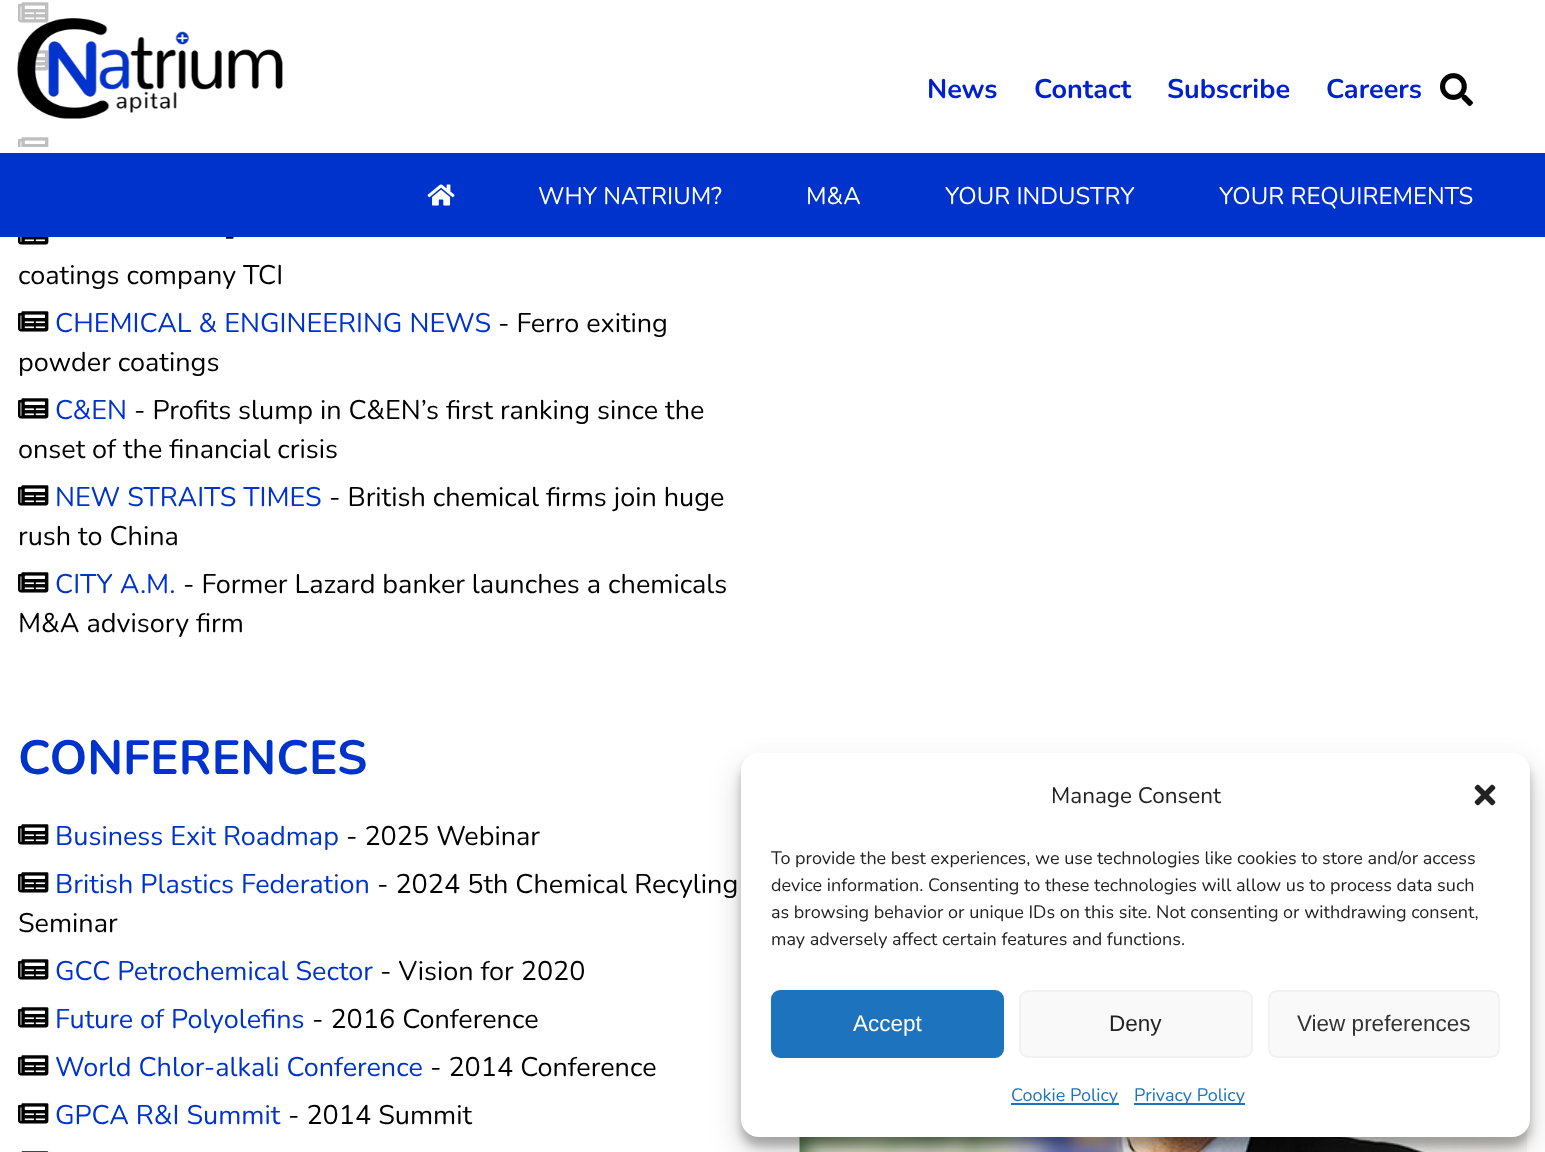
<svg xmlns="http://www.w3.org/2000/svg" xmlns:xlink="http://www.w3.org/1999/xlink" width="1545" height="1152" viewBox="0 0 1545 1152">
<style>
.cls-1{font:bold 27px Nunito;fill:#0021cc}
.cls-2{font:27px Nunito;fill:#000000}
.cls-3{font:24px Nunito;fill:#ffffff}
.cls-4{font:27px Nunito;fill:#0033cc}
.cls-5{font:bold 48px Nunito;fill:#0033cc}
.cls-6{font:22.5px Nunito;fill:#222222}
.cls-7{font:18px Nunito;fill:#222222}
.cls-8{font:22.5px Liberation Sans;fill:#ffffff}
.cls-9{font:22.5px Liberation Sans;fill:#222222}
.cls-10{font:22.5px Liberation Sans;fill:#333333}
.cls-11{font:18px Nunito;fill:#1e73be}
</style>
<rect width="100%" height="100%" fill="#ffffff"/>
<image xlink:href="image3.png" x="18" y="2" width="31" height="21"/>
<image xlink:href="image3.png" x="18" y="50" width="31" height="21"/>
<image xlink:href="image4.png" x="18" y="137" width="31" height="10"/>
<rect fill="#ffffff" fill-opacity="0.75" x="18" y="2" width="31" height="145"/>
<image xlink:href="image0.png" x="17" y="18" width="266" height="101"/>
<image xlink:href="image1.png" x="1440" y="73" width="33" height="34"/>
<image xlink:href="image5.png" x="18" y="237" width="31" height="8"/>
<image xlink:href="image3.png" x="18" y="311" width="31" height="21"/>
<image xlink:href="image3.png" x="18" y="398" width="31" height="21"/>
<image xlink:href="image3.png" x="18" y="485" width="31" height="21"/>
<image xlink:href="image3.png" x="18" y="572" width="31" height="21"/>
<image xlink:href="image3.png" x="18" y="824" width="31" height="21"/>
<image xlink:href="image3.png" x="18" y="872" width="31" height="21"/>
<image xlink:href="image3.png" x="18" y="959" width="31" height="21"/>
<image xlink:href="image3.png" x="18" y="1007" width="31" height="21"/>
<image xlink:href="image3.png" x="18" y="1055" width="31" height="21"/>
<image xlink:href="image3.png" x="18" y="1103" width="31" height="21"/>
<image xlink:href="image6.png" x="21" y="1151" width="28" height="1"/>
<image xlink:href="image7.png" x="799" y="1129" width="728" height="23"/>
<rect fill="#000000" fill-opacity="0.23" filter="blur(4.5px)" x="741" y="762" width="789" height="384" rx="18"/>
<rect fill="#000000" fill-opacity="0.19" filter="blur(15px)" x="741" y="768" width="789" height="384" rx="18"/>
<rect fill="#ffffff" x="741" y="753" width="789" height="384" rx="18"/>
<image xlink:href="image8.png" x="1474" y="784" width="22" height="22"/>
<rect fill="#1e73be" stroke="#1e73be" stroke-width="2" x="772" y="991" width="231" height="66" rx="8"/>
<rect fill="#f9f9f9" stroke="#f2f2f2" stroke-width="2" x="1020" y="991" width="232" height="66" rx="8"/>
<rect fill="#f9f9f9" stroke="#f2f2f2" stroke-width="2" x="1269" y="991" width="230" height="66" rx="8"/>
<rect fill="#1e73be" x="1011" y="1103" width="108" height="2"/>
<rect fill="#1e73be" x="1134" y="1103" width="111" height="2"/>
<text class="cls-1" x="927" y="98">News</text>
<text class="cls-1" x="1034" y="98">Contact</text>
<text class="cls-1" x="1167" y="98">Subscribe</text>
<text class="cls-1" x="1326" y="98">Careers</text>
<text class="cls-2" x="224" y="245">-</text>
<rect fill="#0033cc" x="0" y="153" width="1545" height="84"/>
<text class="cls-3" x="1219" y="204">YOUR REQUIREMENTS</text>
<text class="cls-3" x="945" y="204">YOUR INDUSTRY</text>
<text class="cls-3" x="806" y="204">M&amp;A</text>
<text class="cls-3" x="538" y="204">WHY NATRIUM?</text>
<image xlink:href="image2.png" x="427" y="184" width="28" height="22"/>
<text class="cls-2" x="18" y="284">coatings company TCI</text>
<text class="cls-4" x="55" y="332">CHEMICAL &amp; ENGINEERING NEWS</text>
<text class="cls-2" x="498" y="332">- Ferro exiting</text>
<text class="cls-2" x="18" y="371">powder coatings</text>
<text class="cls-4" x="55" y="419">C&amp;EN</text>
<text class="cls-2" x="134" y="419">- Profits slump in C&amp;EN’s first ranking since the</text>
<text class="cls-2" x="18" y="458">onset of the financial crisis</text>
<text class="cls-4" x="55" y="506">NEW STRAITS TIMES</text>
<text class="cls-2" x="329" y="506">- British chemical firms join huge</text>
<text class="cls-2" x="18" y="545">rush to China</text>
<text class="cls-4" x="55" y="593">CITY A.M.</text>
<text class="cls-2" x="183" y="593">- Former Lazard banker launches a chemicals</text>
<text class="cls-2" x="18" y="632">M&amp;A advisory firm</text>
<text class="cls-5" x="18" y="774">CONFERENCES</text>
<text class="cls-4" x="55" y="845">Business Exit Roadmap</text>
<text class="cls-2" x="346" y="845">- 2025 Webinar</text>
<text class="cls-4" x="55" y="893">British Plastics Federation</text>
<text class="cls-2" x="377" y="893">- 2024 5th Chemical Recyling</text>
<text class="cls-2" x="18" y="932">Seminar</text>
<text class="cls-4" x="55" y="980">GCC Petrochemical Sector</text>
<text class="cls-2" x="380" y="980">- Vision for 2020</text>
<text class="cls-4" x="55" y="1028">Future of Polyolefins</text>
<text class="cls-2" x="312" y="1028">- 2016 Conference</text>
<text class="cls-4" x="55" y="1076">World Chlor-alkali Conference</text>
<text class="cls-2" x="430" y="1076">- 2014 Conference</text>
<text class="cls-4" x="55" y="1124">GPCA R&amp;I Summit</text>
<text class="cls-2" x="288" y="1124">- 2014 Summit</text>
<text class="cls-6" x="1051" y="803">Manage Consent</text>
<text class="cls-7"><tspan x="771" y="864">To provide the best experiences, we use technologies like cookies to store and/or access</tspan><tspan x="771" y="891">device information. Consenting to these technologies will allow us to process data such</tspan><tspan x="771" y="918">as browsing behavior or unique IDs on this site. Not consenting or withdrawing consent,</tspan><tspan x="771" y="945">may adversely affect certain features and functions.</tspan></text>
<text class="cls-8" x="853" y="1031">Accept</text>
<text class="cls-9" x="1109" y="1031">Deny</text>
<text class="cls-10" x="1297" y="1031">View preferences</text>
<text class="cls-11" x="1011" y="1101">Cookie Policy</text>
<text class="cls-11" x="1134" y="1101">Privacy Policy</text>
</svg>
